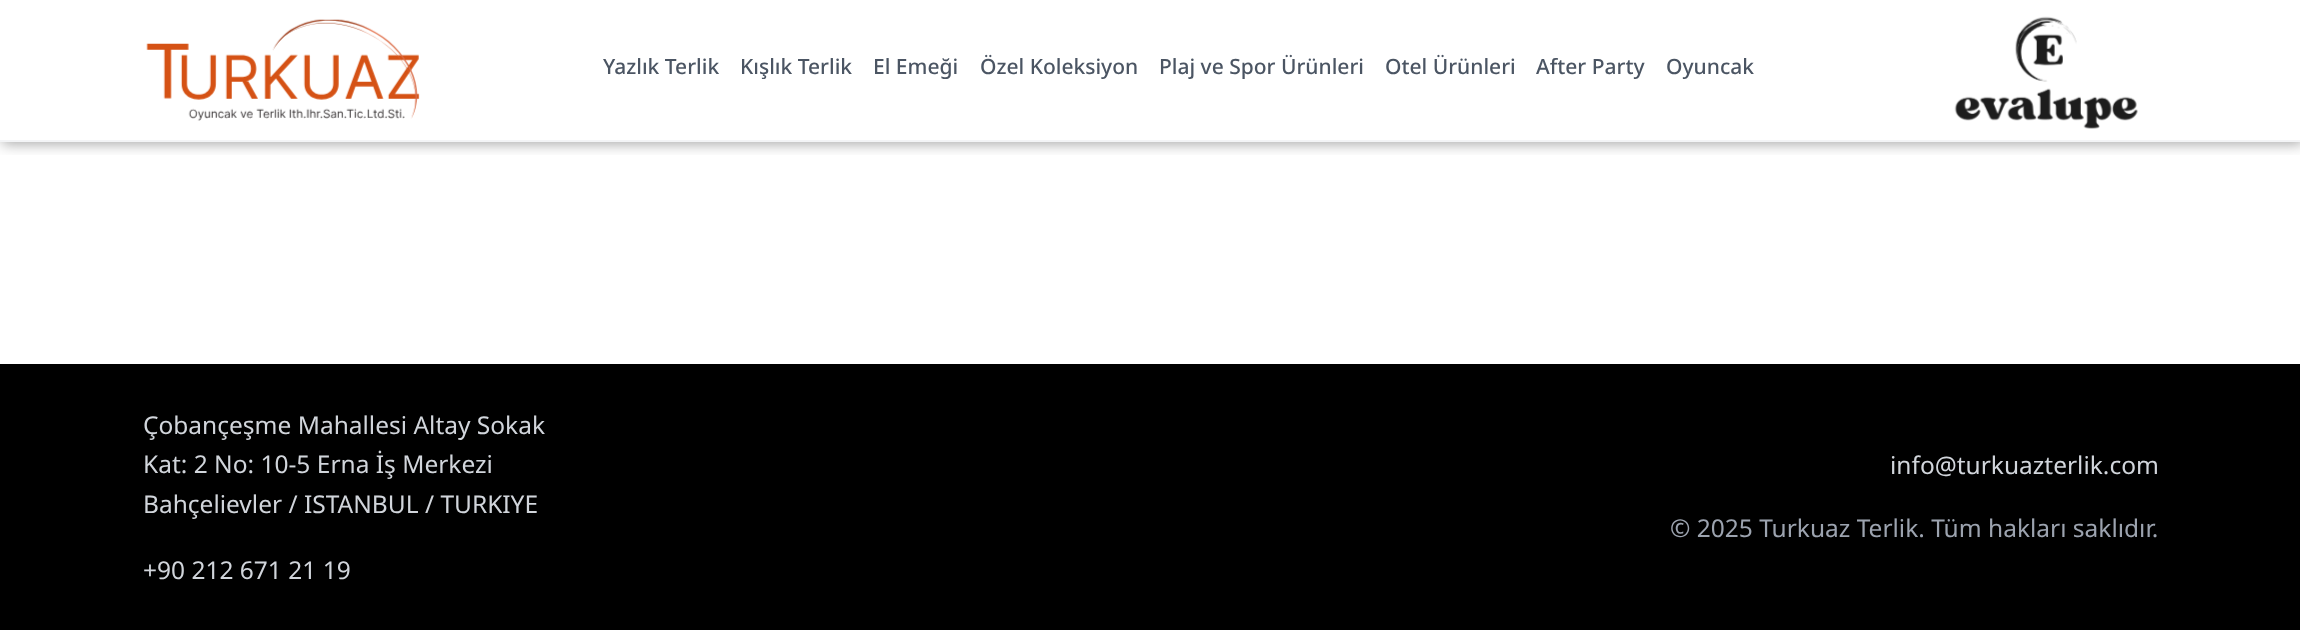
<svg xmlns="http://www.w3.org/2000/svg" xmlns:xlink="http://www.w3.org/1999/xlink" width="2300" height="630" viewBox="0 0 2300 630">
<style>
.cls-1{font:500 21px Noto Sans;fill:#4b5563}
.cls-2{font:24.5px Noto Sans;fill:#d1d5db}
.cls-3{font:24.5px Noto Sans;fill:#9ca3af}
</style>
<defs>
<clipPath id="clip1"><rect x="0" y="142" width="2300" height="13"/></clipPath>
</defs>
<rect width="100%" height="100%" fill="#ffffff"/>
<g clip-path="url(#clip1)">
<rect fill="#000000" fill-opacity="0.35" filter="blur(7px)" x="2" y="2" width="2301" height="142"/>
</g>
<rect fill="#f3f4f6" x="0" y="140" width="2300" height="2"/>
<image xlink:href="image0.png" x="146" y="19" width="274" height="102"/>
<image xlink:href="image1.png" x="1954" y="16" width="184" height="113"/>
<rect fill="#000000" x="0" y="364" width="2300" height="266"/>
<text class="cls-1" x="603" y="74">Yazlık Terlik</text>
<text class="cls-1" x="740" y="74">Kışlık Terlik</text>
<text class="cls-1" x="873" y="74">El Emeği</text>
<text class="cls-1" x="980" y="74">Özel Koleksiyon</text>
<text class="cls-1" x="1159" y="74">Plaj ve Spor Ürünleri</text>
<text class="cls-1" x="1385" y="74">Otel Ürünleri</text>
<text class="cls-1" x="1536" y="74">After Party</text>
<text class="cls-1" x="1666" y="74">Oyuncak</text>
<text class="cls-2"><tspan x="143" y="434">Çobançeşme Mahallesi Altay Sokak</tspan><tspan x="143" y="473">Kat: 2 No: 10-5 Erna İş Merkezi</tspan><tspan x="143" y="513">Bahçelievler / ISTANBUL / TURKIYE</tspan></text>
<text class="cls-2" x="143" y="579">+90 212 671 21 19</text>
<text class="cls-2" x="1890" y="474">info@turkuazterlik.com</text>
<text class="cls-3" x="1670" y="537">© 2025 Turkuaz Terlik. Tüm hakları saklıdır.</text>
</svg>
